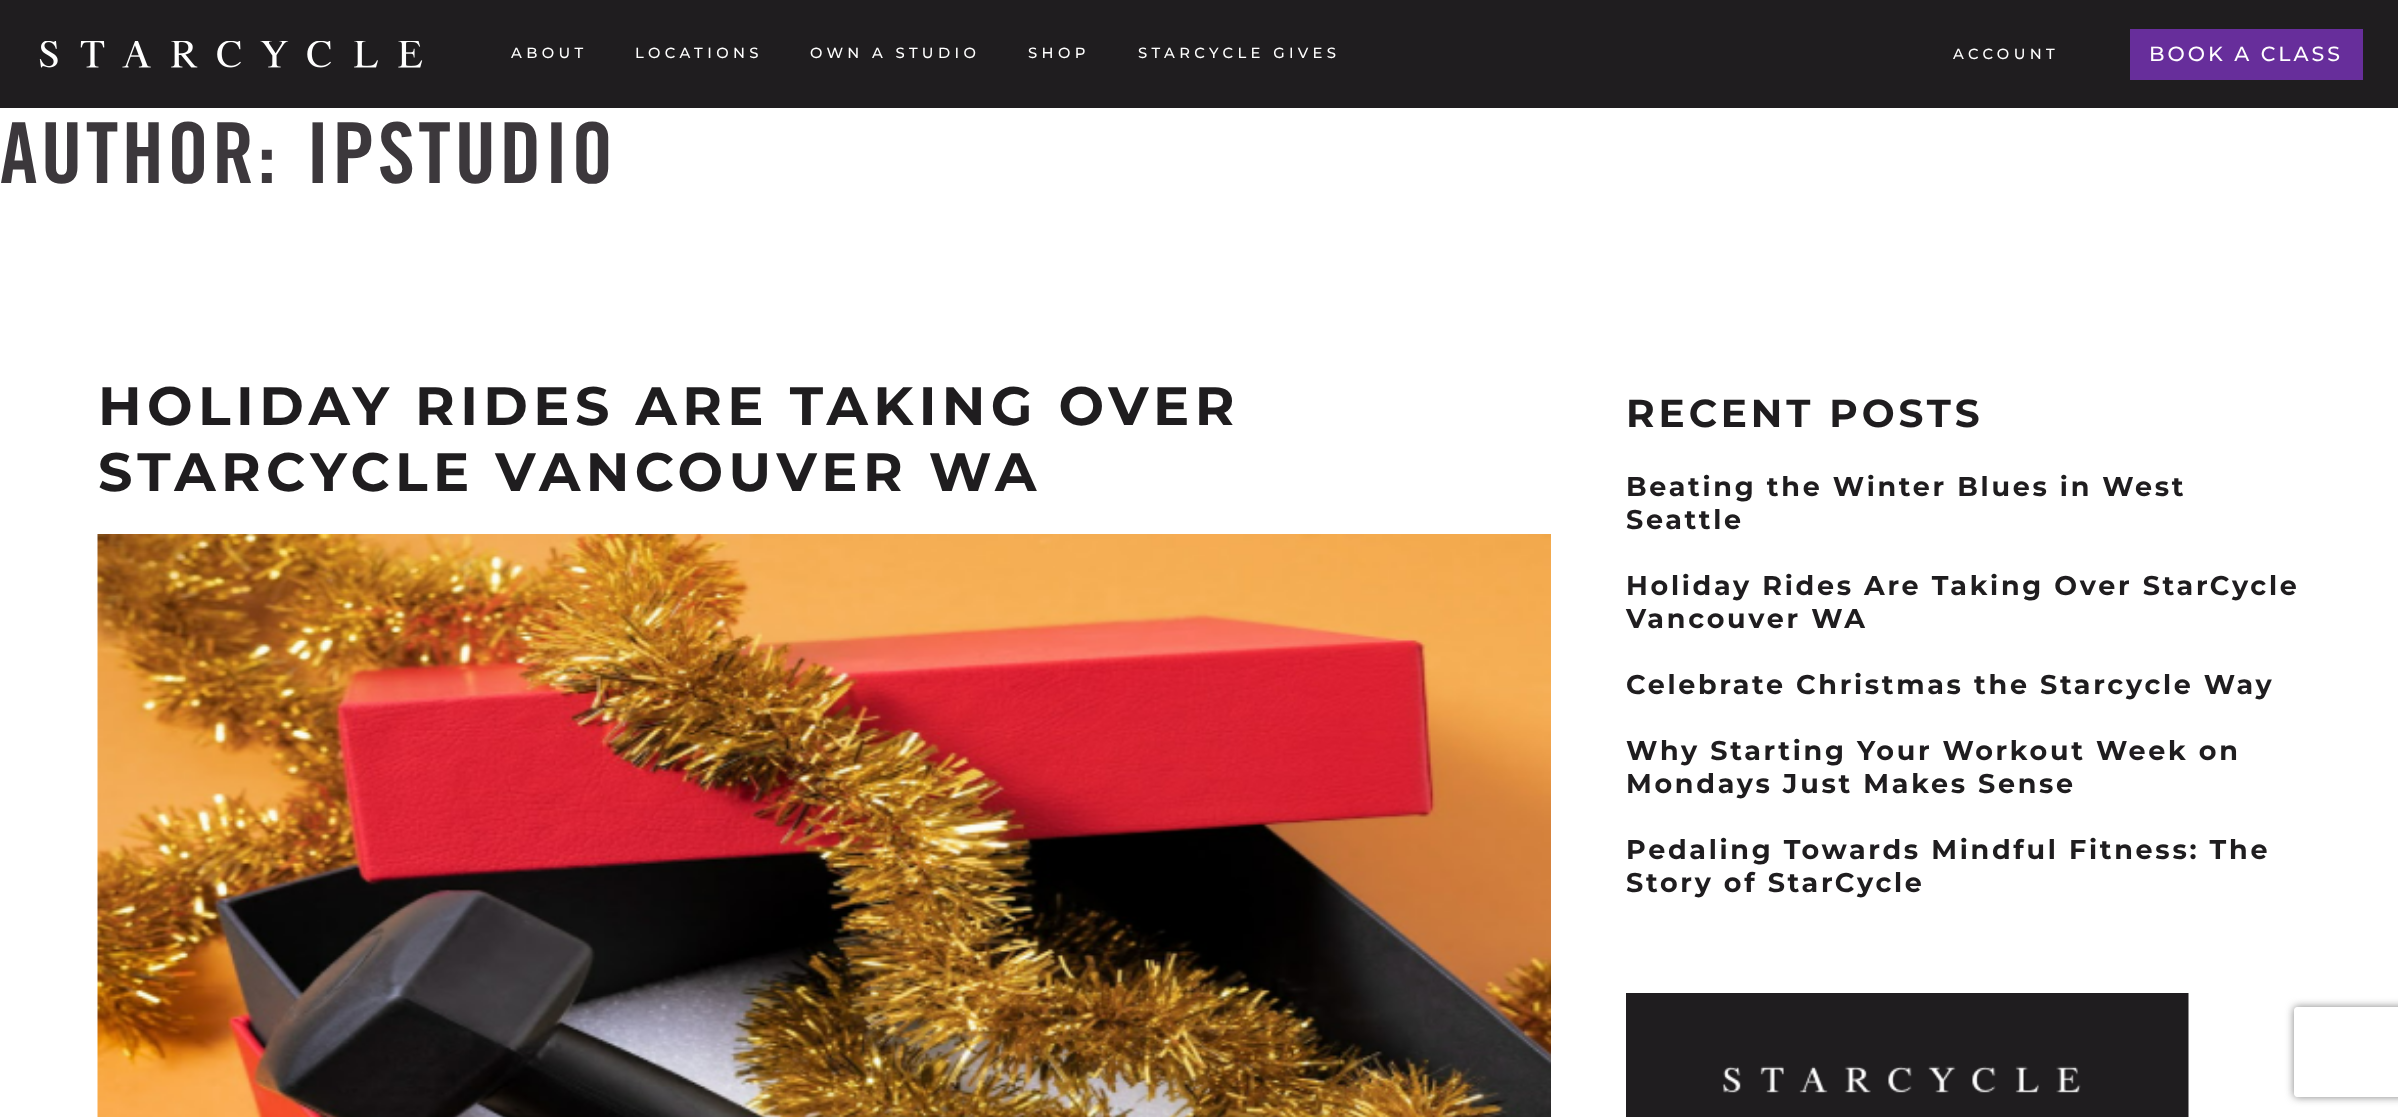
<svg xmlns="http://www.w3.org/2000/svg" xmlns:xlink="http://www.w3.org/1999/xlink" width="2398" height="1117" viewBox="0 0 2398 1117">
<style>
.cls-1{font:500 14.75px Montserrat;letter-spacing:4.4px;fill:#ffffff}
.cls-2{font:500 20.5px Montserrat;letter-spacing:3px;fill:#ffffff}
.cls-3{font:bold 84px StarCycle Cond;letter-spacing:3.25px;fill:#3c383c}
.cls-4{font:bold 54px Montserrat;letter-spacing:5.4px;fill:#1f1d1f}
.cls-5{font:bold 39px Montserrat;letter-spacing:3.9px;fill:#1f1d1f}
.cls-6{font:bold 27px Montserrat;letter-spacing:2.7px;fill:#1f1d1f}
</style>
<defs>
<clipPath id="clip1"><path d="M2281 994H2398V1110H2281ZM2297 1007H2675C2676.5 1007 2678 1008.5 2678 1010V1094C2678 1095.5 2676.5 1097 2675 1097H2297C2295.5 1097 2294 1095.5 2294 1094V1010C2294 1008.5 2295.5 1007 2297 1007Z" clip-rule="evenodd"/></clipPath>
</defs>
<rect width="100%" height="100%" fill="#1f1d1f"/>
<image xlink:href="image0.png" x="39" y="41" width="384" height="27"/>
<rect fill="#672e9b" x="2130" y="29" width="233" height="51"/>
<rect fill="#ffffff" x="0" y="108" width="2398" height="1009"/>
<image xlink:href="image1.png" x="97" y="534" width="1454" height="583"/>
<image xlink:href="image2.png" x="1626" y="993" width="563" height="124"/>
<g clip-path="url(#clip1)">
<rect fill="#808080" filter="blur(4px)" x="2294" y="1007" width="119" height="90" rx="3"/>
</g>
<text class="cls-1" x="511" y="58">ABOUT</text>
<text class="cls-1" x="635" y="58">LOCATIONS</text>
<text class="cls-1" x="810" y="58">OWN A STUDIO</text>
<text class="cls-1" x="1028" y="58">SHOP</text>
<text class="cls-1" x="1138" y="58">STARCYCLE GIVES</text>
<text class="cls-1" x="1953" y="59">ACCOUNT</text>
<text class="cls-2" x="2149" y="61">BOOK A CLASS</text>
<text class="cls-3" x="0" y="183">AUTHOR:</text>
<text class="cls-3" x="306" y="183">IPSTUDIO</text>
<text class="cls-4"><tspan x="98" y="425">HOLIDAY RIDES ARE TAKING OVER</tspan><tspan x="98" y="491">STARCYCLE VANCOUVER WA</tspan></text>
<text class="cls-5" x="1626" y="427">RECENT POSTS</text>
<text class="cls-6"><tspan x="1626" y="496">Beating the Winter Blues in West</tspan><tspan x="1626" y="529">Seattle</tspan></text>
<text class="cls-6"><tspan x="1626" y="595">Holiday Rides Are Taking Over StarCycle</tspan><tspan x="1626" y="628">Vancouver WA</tspan></text>
<text class="cls-6" x="1626" y="694">Celebrate Christmas the Starcycle Way</text>
<text class="cls-6"><tspan x="1626" y="760">Why Starting Your Workout Week on</tspan><tspan x="1626" y="793">Mondays Just Makes Sense</tspan></text>
<text class="cls-6"><tspan x="1626" y="859">Pedaling Towards Mindful Fitness: The</tspan><tspan x="1626" y="892">Story of StarCycle</tspan></text>
</svg>
